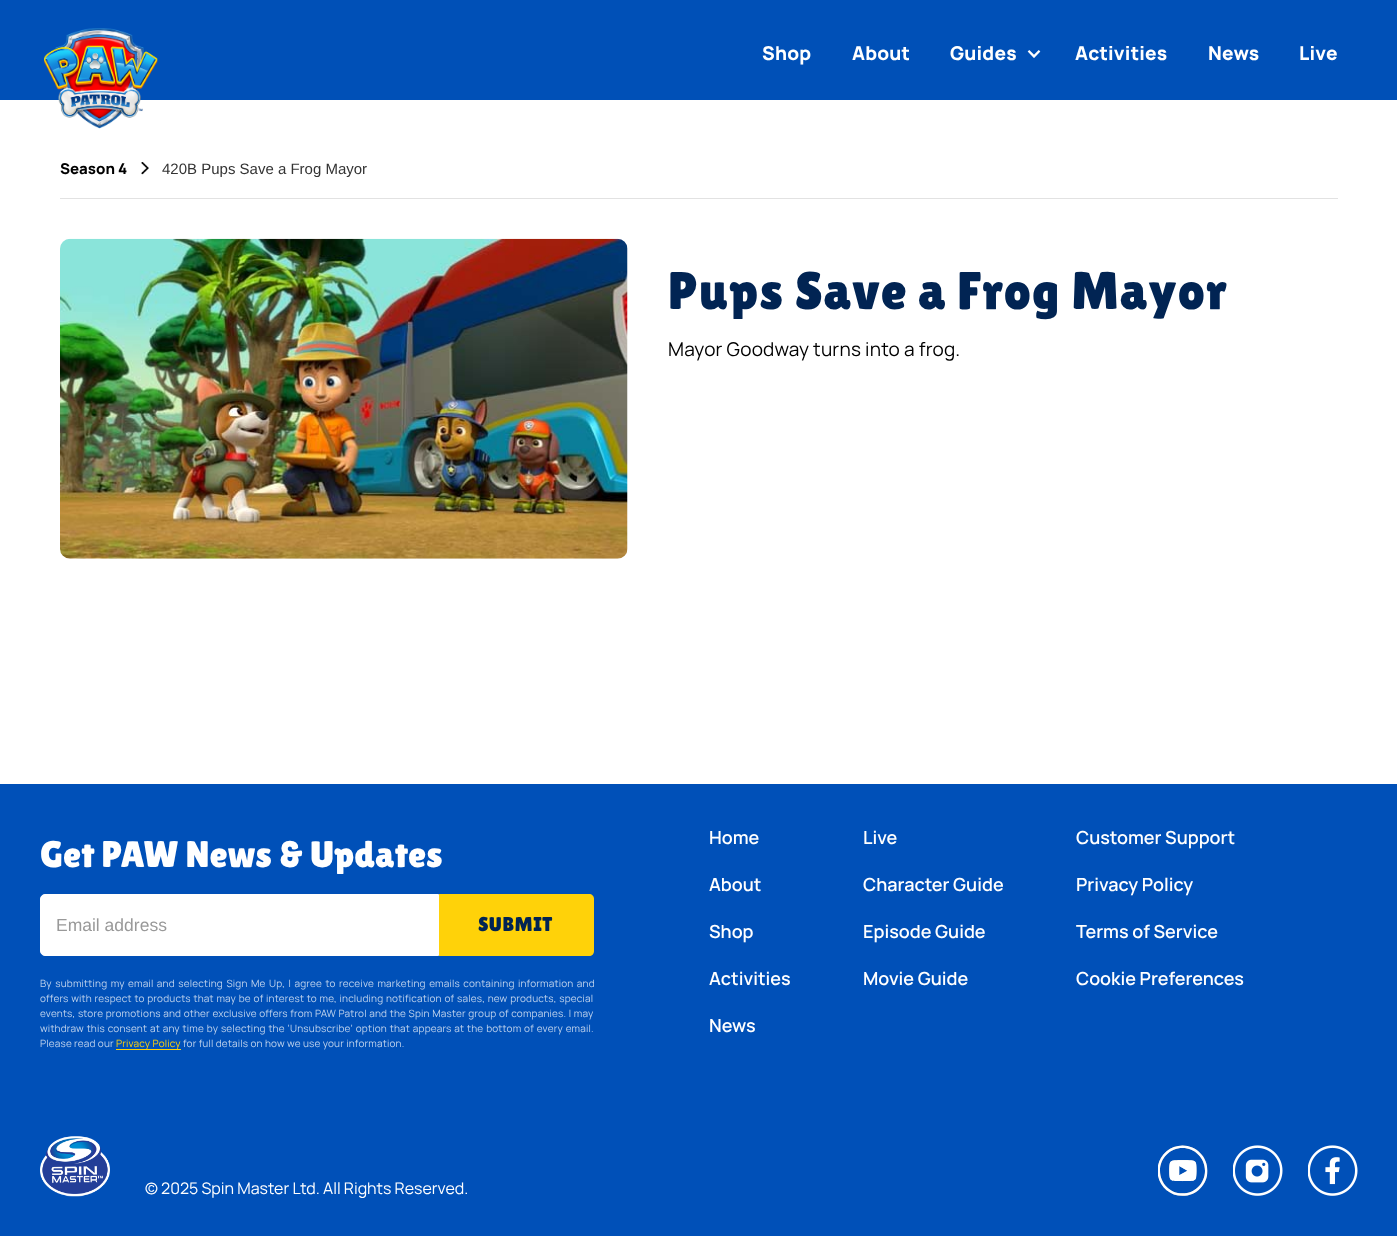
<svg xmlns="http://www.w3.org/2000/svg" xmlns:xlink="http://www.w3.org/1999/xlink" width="1397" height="1236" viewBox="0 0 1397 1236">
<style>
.cls-1{font:800 19px Manrope;letter-spacing:0.19px;fill:#ffffff}
.cls-2{font:800 15px Manrope;fill:#000000}
.cls-3{font:15px Liberation Sans;fill:#333333}
.cls-4{font:53px Lilita One;letter-spacing:0.9px;fill:#012453}
.cls-5{font:19px Manrope;letter-spacing:0.19px;fill:#000000}
.cls-6{font:37px Lilita One;fill:#ffffff}
.cls-7{font:17.5px Liberation Sans;fill:#999999}
.cls-8{font:20px Lilita One;letter-spacing:0.5px;fill:#012453}
.cls-9{font:10px Manrope;letter-spacing:0.19px;fill:#bfd3ed}
.cls-10{font:10px Manrope;letter-spacing:0.19px;fill:#ffd209}
.cls-11{font:600 18px Manrope;fill:#ffffff}
.cls-12{font:16px Manrope;fill:#ffffff}
</style>
<rect width="100%" height="100%" fill="#ffffff"/>
<rect fill="#0050b7" x="0" y="0" width="1397" height="100"/>
<image xlink:href="image0.png" x="44" y="28" width="114" height="101"/>
<image xlink:href="image1.png" x="1027" y="50" width="14" height="8"/>
<rect fill="#e2e2e2" x="60" y="198" width="1278" height="1"/>
<image xlink:href="image2.png" x="141" y="162" width="8" height="13"/>
<image xlink:href="image3.png" x="60" y="238" width="568" height="321"/>
<rect fill="#0050b8" x="0" y="784" width="1397" height="452"/>
<path fill="#ffffff" stroke="#ffffff" d="M45 894.5H438.5V955.5H45C42.5 955.5 40.5 953.5 40.5 951V899C40.5 896.5 42.5 894.5 45 894.5Z"/>
<path fill="#ffd209" d="M439 894H589C592 894 594 896 594 899V951C594 954 592 956 589 956H439Z"/>
<rect fill="#ffd209" x="116" y="1049" width="65" height="1"/>
<image xlink:href="image4.png" x="40" y="1136" width="70" height="61"/>
<image xlink:href="image5.png" x="1158" y="1145" width="50" height="51"/>
<image xlink:href="image6.png" x="1233" y="1145" width="50" height="51"/>
<image xlink:href="image7.png" x="1308" y="1145" width="50" height="51"/>
<text class="cls-1" x="762" y="60">Shop</text>
<text class="cls-1" x="852" y="60">About</text>
<text class="cls-1" x="950" y="60">Guides</text>
<text class="cls-1" x="1075" y="60">Activities</text>
<text class="cls-1" x="1208" y="60">News</text>
<text class="cls-1" x="1299" y="60">Live</text>
<text class="cls-2" x="60" y="174">Season 4</text>
<text class="cls-3" x="162" y="174">420B Pups Save a Frog Mayor</text>
<text class="cls-4" x="668" y="309">Pups Save a Frog Mayor</text>
<text class="cls-5" x="668" y="356">Mayor Goodway turns into a frog.</text>
<text class="cls-6" x="40" y="867">Get PAW News &amp; Updates</text>
<text class="cls-7" x="56" y="931">Email address</text>
<text class="cls-8" x="478" y="931">SUBMIT</text>
<text class="cls-9"><tspan x="40" y="987" word-spacing="1.25">By submitting my email and selecting Sign Me Up, I agree to receive marketing emails containing information and</tspan><tspan x="40" y="1002" word-spacing="0.5">offers with respect to products that may be of interest to me, including notification of sales, new products, special</tspan><tspan x="40" y="1017" word-spacing="0.3">events, store promotions and other exclusive offers from PAW Patrol and the Spin Master group of companies. I may</tspan><tspan x="40" y="1032" word-spacing="0.6">withdraw this consent at any time by selecting the ‘Unsubscribe’ option that appears at the bottom of every email.</tspan><tspan x="40" y="1047">Please read our</tspan></text>
<text class="cls-10" x="116" y="1047">Privacy Policy</text>
<text class="cls-9" x="183" y="1047">for full details on how we use your information.</text>
<text class="cls-11" x="709" y="844">Home</text>
<text class="cls-11" x="709" y="891">About</text>
<text class="cls-11" x="709" y="938">Shop</text>
<text class="cls-11" x="709" y="985">Activities</text>
<text class="cls-11" x="709" y="1032">News</text>
<text class="cls-11" x="863" y="844">Live</text>
<text class="cls-11" x="863" y="891">Character Guide</text>
<text class="cls-11" x="863" y="938">Episode Guide</text>
<text class="cls-11" x="863" y="985">Movie Guide</text>
<text class="cls-11" x="1076" y="844">Customer Support</text>
<text class="cls-11" x="1076" y="891">Privacy Policy</text>
<text class="cls-11" x="1076" y="938">Terms of Service</text>
<text class="cls-11" x="1076" y="985">Cookie Preferences</text>
<text class="cls-12" x="145" y="1194">© 2025 Spin Master Ltd. All Rights Reserved.</text>
</svg>
